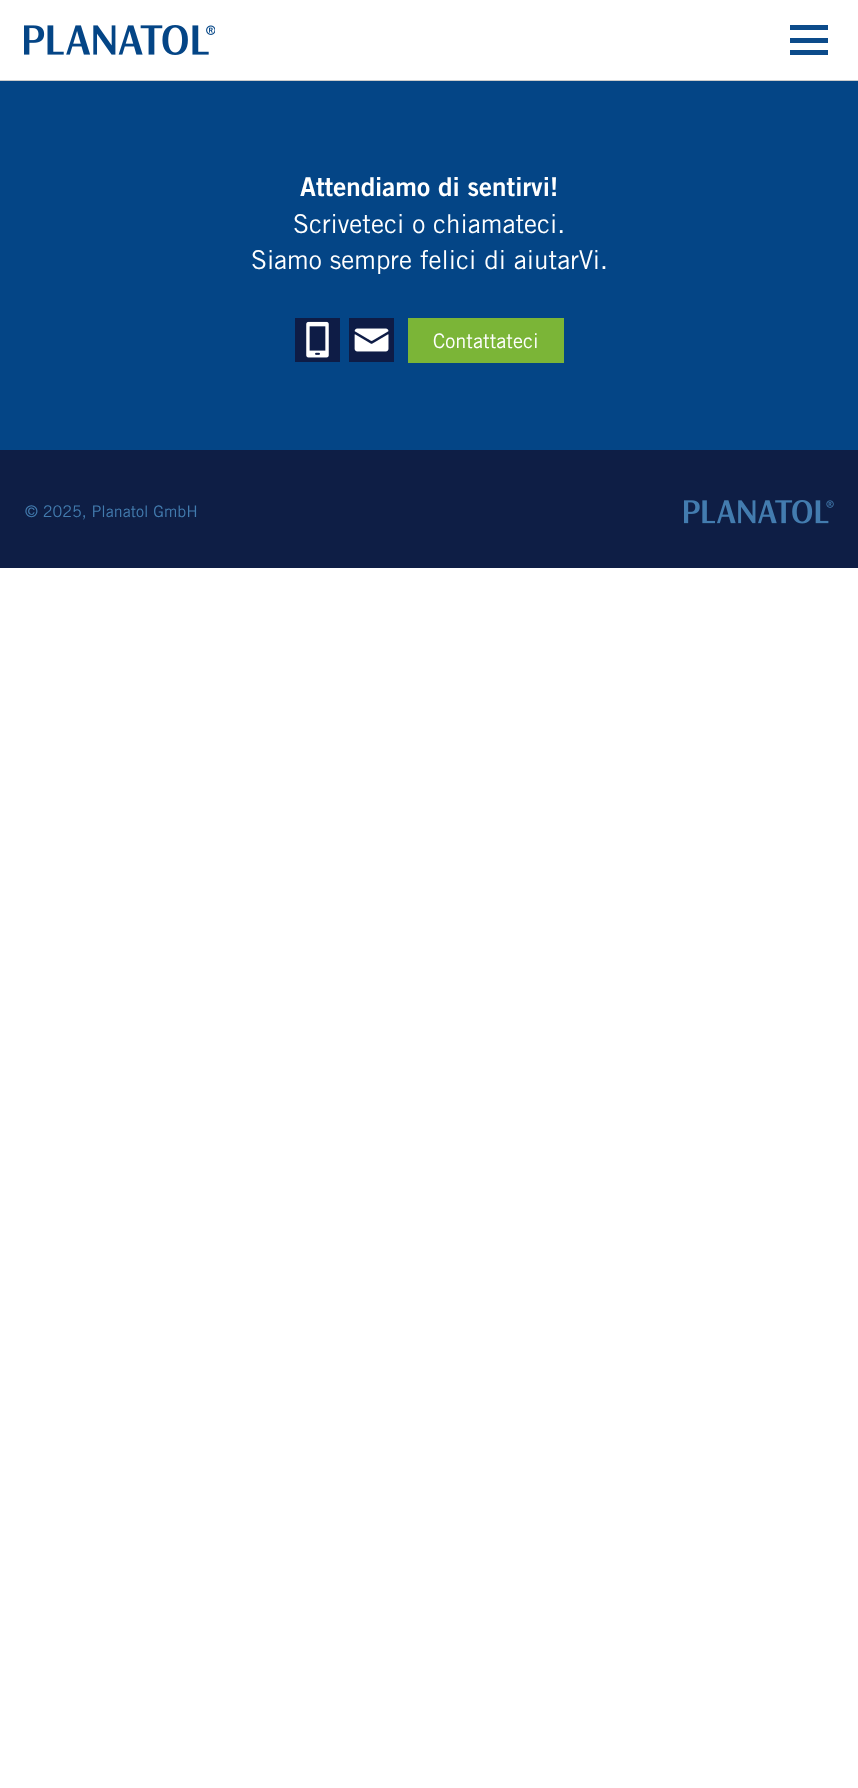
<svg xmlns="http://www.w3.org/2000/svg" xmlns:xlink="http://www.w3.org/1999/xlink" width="858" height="1788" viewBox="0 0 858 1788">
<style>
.cls-1{font:bold 26px 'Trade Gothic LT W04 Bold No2';fill:#ffffff}
.cls-2{font:26px Trade Gothic;fill:#ffffff}
.cls-3{font:20px Trade Gothic;fill:#ffffff}
.cls-4{font:16px Trade Gothic;fill:#437caf}
</style>
<rect width="100%" height="100%" fill="#ffffff"/>
<rect fill="#cccccc" x="0" y="80" width="858" height="1"/>
<image xlink:href="image0.png" x="24" y="25" width="191" height="30"/>
<rect fill="#0c4b8a" x="790" y="38" width="38" height="5"/>
<rect fill="#0c4b8a" x="790" y="25" width="38" height="5"/>
<rect fill="#0c4b8a" x="790" y="50" width="38" height="5"/>
<rect fill="#044586" x="0" y="81" width="858" height="369"/>
<image xlink:href="image1.png" x="295" y="318" width="99" height="44"/>
<rect fill="#7bb537" x="408" y="318" width="156" height="45"/>
<rect fill="#0e1e45" x="0" y="450" width="858" height="118"/>
<image xlink:href="image2.png" x="684" y="500" width="150" height="24"/>
<text class="cls-1" x="300" y="196">Attendiamo di sentirvi!</text>
<text class="cls-2" x="293" y="233">Scriveteci o chiamateci.</text>
<text class="cls-2" x="251" y="269">Siamo sempre felici di aiutarVi.</text>
<text class="cls-3" x="433" y="348">Contattateci</text>
<text class="cls-4" x="25" y="517">© 2025, Planatol GmbH</text>
</svg>
